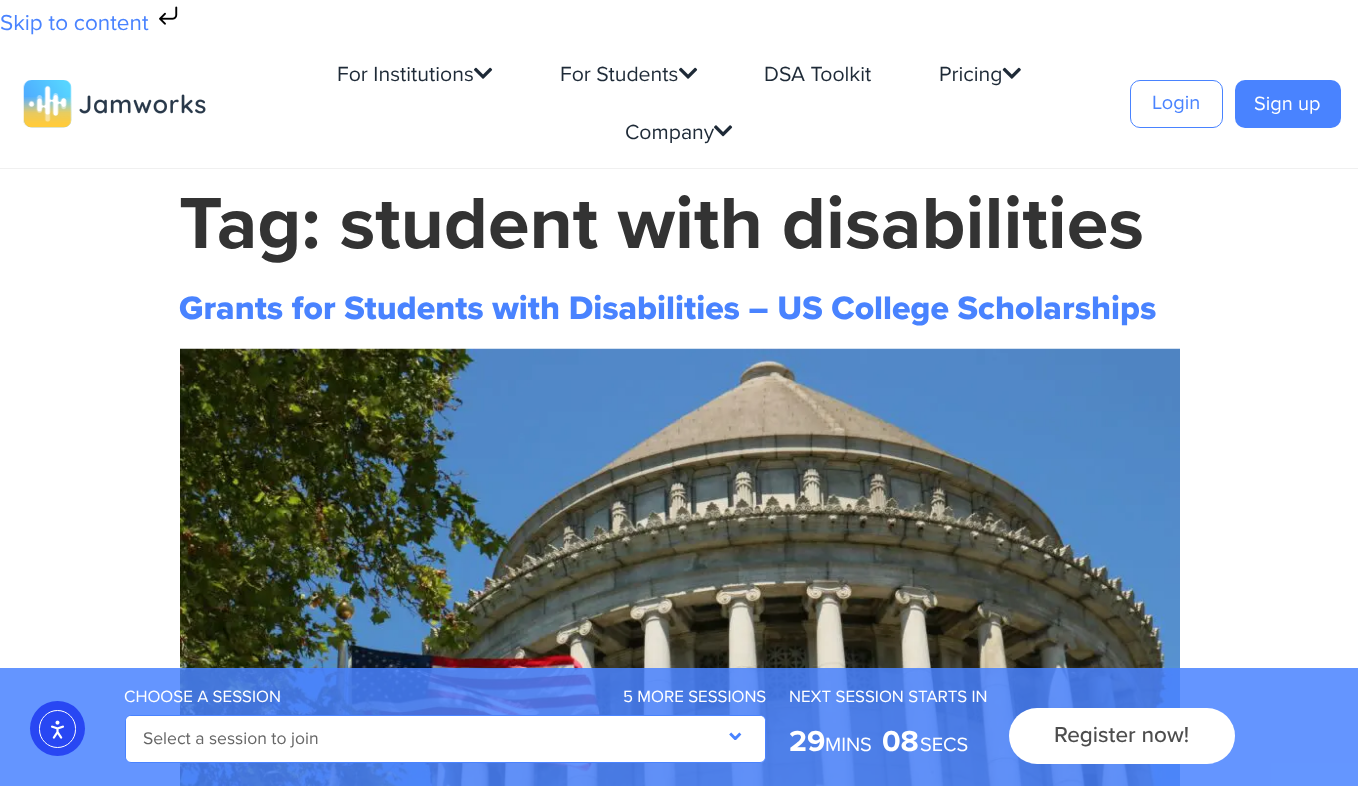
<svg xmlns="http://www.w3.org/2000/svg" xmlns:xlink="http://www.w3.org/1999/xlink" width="1358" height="786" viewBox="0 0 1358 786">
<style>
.cls-1{font:22.5px Proxima Nova;fill:#4983ff}
.cls-2{font:21.25px Proxima Nova;fill:#1e2a37}
.cls-3{font:20px Proxima Nova;fill:#4983ff}
.cls-4{font:20px Proxima Nova;fill:#ffffff}
.cls-5{font:bold 75px Proxima Nova;fill:#333333}
.cls-6{font:800 33.75px Proxima Nova;fill:#4983ff}
.cls-7{font:16.9px Proxima Nova;fill:#ffffff}
.cls-8{font:17.5px Proxima Nova;fill:#666666}
.cls-9{font:bold 26px DejaVu Sans;letter-spacing:7px;fill:#4983ff}
.cls-10{font:bold 30px Proxima Nova;fill:#ffffff}
.cls-11{font:500 22.5px Proxima Nova;fill:#4d4d4d}
</style>
<rect width="100%" height="100%" fill="#ffffff"/>
<image xlink:href="image0.png" x="159" y="6" width="19" height="19"/>
<rect fill="#f0f0f0" x="0" y="168" width="1358" height="1"/>
<image xlink:href="image1.png" x="23" y="80" width="49" height="48"/>
<image xlink:href="image2.png" x="79" y="94" width="127" height="20"/>
<image xlink:href="image3.png" x="474" y="67" width="19" height="12"/>
<image xlink:href="image3.png" x="679" y="67" width="19" height="12"/>
<image xlink:href="image4.png" x="1002" y="67" width="19" height="12"/>
<rect fill="none" stroke="#4983ff" x="1130.5" y="80.5" width="92" height="47" rx="9.5"/>
<rect fill="#4983ff" x="1235" y="80" width="106" height="48" rx="10"/>
<image xlink:href="image6.png" x="180" y="348" width="1000" height="438"/>
<rect fill="#4983ff" fill-opacity="0.85" x="0" y="668" width="1358" height="118"/>
<circle fill="#2847f3" cx="57.5" cy="728.5" r="27.5"/>
<rect fill="none" stroke="#ffffff" x="39.5" y="710.5" width="36" height="37" rx="18"/>
<image xlink:href="image7.png" x="50" y="720" width="14" height="19"/>
<rect fill="#ffffff" stroke="#4983ff" x="125.5" y="715.5" width="640" height="47" rx="5.5"/>
<rect fill="#ffffff" x="126" y="716" width="639" height="45" rx="5"/>
<rect fill="#ffffff" x="1009" y="708" width="226" height="56" rx="28"/>
<text class="cls-1" x="0" y="30">Skip to content</text>
<text class="cls-2" x="337" y="81">For Institutions</text>
<text class="cls-2" x="560" y="81">For Students</text>
<text class="cls-2" x="764" y="81">DSA Toolkit</text>
<text class="cls-2" x="939" y="81">Pricing</text>
<text class="cls-2" x="625" y="139">Company</text>
<image xlink:href="image5.png" x="714" y="125" width="19" height="12"/>
<text class="cls-3" x="1152" y="109">Login</text>
<text class="cls-4" x="1254" y="110">Sign up</text>
<text class="cls-5" x="179" y="248">Tag: student with disabilities</text>
<text class="cls-6" x="179" y="319">Grants for Students with Disabilities – US College Scholarships</text>
<text class="cls-7" x="124" y="702">CHOOSE A SESSION</text>
<text class="cls-7" x="623" y="702">5 MORE SESSIONS</text>
<text class="cls-8" x="143" y="744">Select a session to join</text>
<text class="cls-9" x="724" y="740">⌄</text>
<text class="cls-7" x="789" y="702">NEXT SESSION STARTS IN</text>
<text class="cls-10" x="789" y="751">29</text>
<text class="cls-4" x="825" y="751">MINS</text>
<text class="cls-10" x="882" y="751">08</text>
<text class="cls-4" x="920" y="751">SECS</text>
<text class="cls-11" x="1054" y="742">Register now!</text>
</svg>
